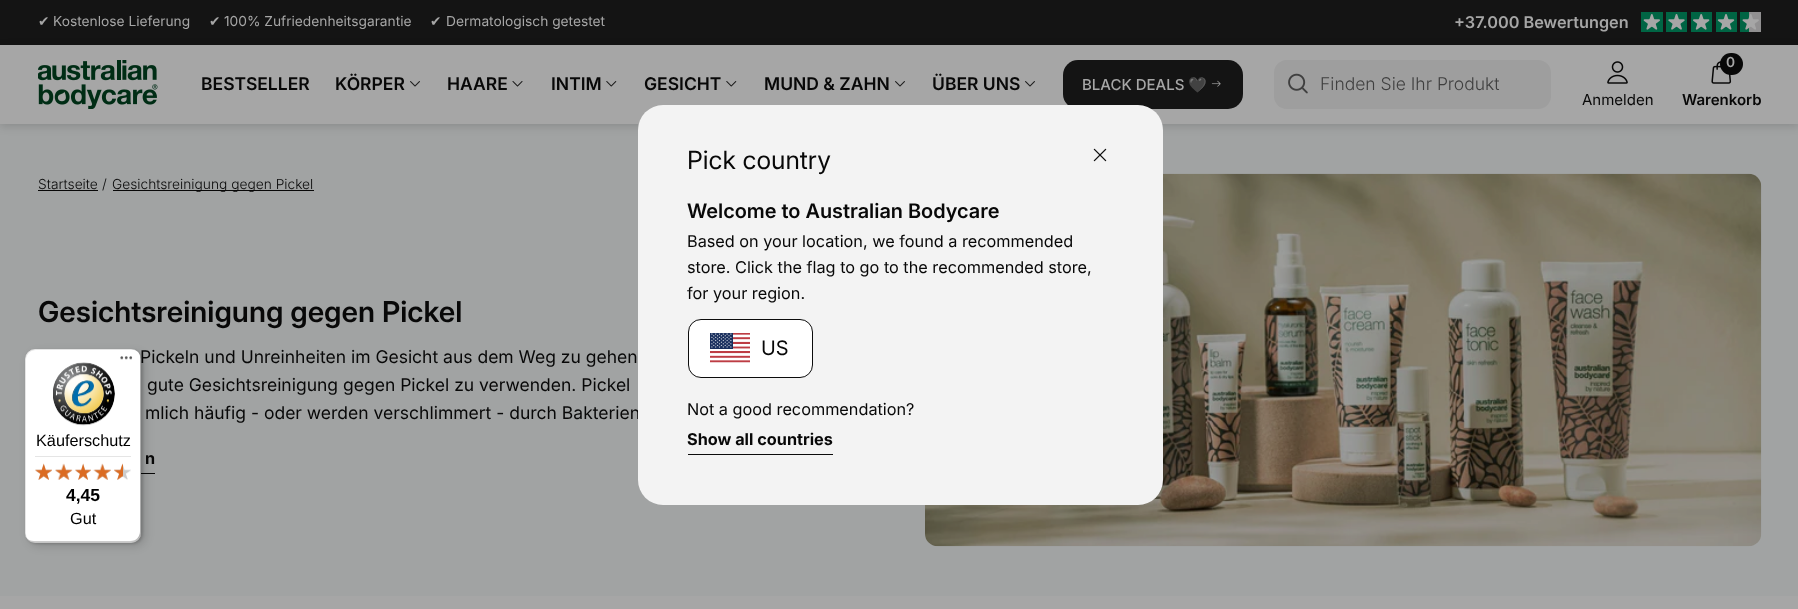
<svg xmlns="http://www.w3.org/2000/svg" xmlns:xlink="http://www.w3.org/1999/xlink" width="1798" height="609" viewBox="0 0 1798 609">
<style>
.cls-1{font:13.75px DejaVu Sans;fill:#a6a6a6}
.cls-2{font:13.75px Inter;fill:#a6a6a6}
.cls-3{font:600 16.25px 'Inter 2';fill:#a6a6a6}
.cls-4{font:600 17.5px 'Inter 2';fill:#080808}
.cls-5{font:500 15px Inter;fill:#a6a6a6}
.cls-6{font:15px Noto Color Emoji;fill:#a6a6a6}
.cls-7{font:300 17.5px Inter;fill:#3f3f3f}
.cls-8{font:15px Inter;fill:#080808}
.cls-9{font:600 13.75px 'Inter 2';fill:#a6a6a6}
.cls-10{font:600 15px 'Inter 2';fill:#080808}
.cls-11{font:300 13.75px Inter;fill:#080808}
.cls-12{font:600 28.75px Inter;fill:#080808}
.cls-13{font:17.5px Inter;fill:#080808}
.cls-14{font:bold 16.25px Inter;fill:#080808}
.cls-15{font:25px 'Inter 2';fill:#080808}
.cls-16{font:600 20px 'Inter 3';fill:#080808}
.cls-17{font:16.25px Inter;fill:#080808}
.cls-18{font:20px 'Inter 3';fill:#080808}
.cls-19{font:16.25px Liberation Sans;fill:#000000}
.cls-20{font:bold 17.5px Liberation Sans;fill:#000000}
</style>
<defs>
<clipPath id="clip1"><path d="M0 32H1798V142H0ZM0 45H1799V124H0Z" clip-rule="evenodd"/></clipPath>
</defs>
<rect width="100%" height="100%" fill="#a6a6a6"/>
<rect fill="#141414" x="0" y="0" width="1798" height="45"/>
<image xlink:href="image0.png" x="1641" y="12" width="108" height="20"/>
<image xlink:href="image1.png" x="1749" y="12" width="12" height="20"/>
<rect fill="#a1a3a3" x="0" y="124" width="1798" height="472"/>
<g clip-path="url(#clip1)">
<rect fill="#000000" fill-opacity="0.15" filter="blur(5px)" x="0" y="48" width="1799" height="78"/>
</g>
<image xlink:href="image2.png" x="38" y="60" width="120" height="49"/>
<image xlink:href="image3.png" x="410" y="81" width="10" height="6"/>
<image xlink:href="image4.png" x="512" y="81" width="11" height="6"/>
<image xlink:href="image5.png" x="606" y="81" width="11" height="6"/>
<image xlink:href="image5.png" x="726" y="81" width="11" height="6"/>
<image xlink:href="image3.png" x="895" y="81" width="10" height="6"/>
<image xlink:href="image3.png" x="1025" y="81" width="10" height="6"/>
<rect fill="#141414" x="1063" y="60" width="180" height="49" rx="15"/>
<image xlink:href="image6.png" x="1211" y="80" width="10" height="7"/>
<rect fill="#9e9e9e" x="1274" y="60" width="277" height="49" rx="13"/>
<image xlink:href="image7.png" x="1288" y="73" width="20" height="21"/>
<image xlink:href="image8.png" x="1607" y="61" width="21" height="23"/>
<image xlink:href="image9.png" x="1711" y="61" width="21" height="23"/>
<rect fill="#080808" x="1720" y="53" width="23" height="22" rx="11"/>
<rect fill="#080808" x="38" y="190" width="60" height="1"/>
<rect fill="#080808" x="113" y="190" width="201" height="1"/>
<rect fill="#080808" x="141" y="473" width="14" height="1"/>
<image xlink:href="image10.png" x="925" y="173" width="837" height="374"/>
<rect fill="#000000" fill-opacity="0.15" filter="blur(5px)" x="29" y="353" width="116" height="193" rx="10"/>
<rect fill="#000000" fill-opacity="0.15" filter="blur(1px)" x="26" y="350" width="117" height="194" rx="10"/>
<rect fill="#ffffff" x="25" y="349" width="116" height="194" rx="10"/>
<path fill="#000000" fill-opacity="0.1" d="M36 350H132C134 350 136 350 137 351C136 350 133 349 131 349H35C29 349 25 353 25 359V533C25 537 27 540 30 542C28 540 26 537 26 534V360C26 354 31 350 36 350Z"/>
<path fill="#000000" fill-opacity="0.2" d="M26 537C28 541 31 543 35 543H131C137 543 141 539 141 533V359C141 357 140 354 139 353C140 354 140 356 140 358V531C140 537 136 541 130 541H34C31 541 28 540 26 537Z"/>
<path fill="#323232" fill-opacity="0.2" d="M26 538C28 541 31 543 35 543H131C137 543 141 539 141 533V359C141 357 140 354 139 353C140 354 140 356 140 358V532C140 537 136 542 130 542H34C31 542 28 540 26 538Z"/>
<image xlink:href="image13.png" x="120" y="356" width="13" height="4"/>
<path fill="#ffffff" fill-opacity="0.3" d="M26 538C28 541 31 543 35 543H131C137 543 141 539 141 533V532C141 537 136 542 131 542H34C31 542 28 540 26 538Z"/>
<image xlink:href="image14.png" x="53" y="362" width="62" height="64"/>
<rect fill="#e5e5e5" x="35" y="456" width="96" height="1"/>
<image xlink:href="image20.png" x="35" y="464" width="17" height="16"/>
<image xlink:href="image15.png" x="35" y="463" width="17" height="17"/>
<image xlink:href="image21.png" x="55" y="464" width="17" height="16"/>
<image xlink:href="image16.png" x="55" y="463" width="18" height="17"/>
<image xlink:href="image22.png" x="75" y="464" width="16" height="16"/>
<image xlink:href="image17.png" x="75" y="463" width="16" height="17"/>
<image xlink:href="image23.png" x="93" y="464" width="18" height="16"/>
<image xlink:href="image18.png" x="93" y="463" width="18" height="17"/>
<image xlink:href="image24.png" x="114" y="464" width="17" height="16"/>
<image xlink:href="image19.png" x="114" y="463" width="9" height="17"/>
<text class="cls-1" x="38" y="26">✔</text>
<text class="cls-2" x="53" y="26">Kostenlose Lieferung</text>
<text class="cls-1" x="209" y="26">✔</text>
<text class="cls-2" x="224" y="26">100% Zufriedenheitsgarantie</text>
<text class="cls-1" x="430" y="26">✔</text>
<text class="cls-2" x="446" y="26">Dermatologisch getestet</text>
<text class="cls-3" x="1454" y="28">+37.000 Bewertungen</text>
<text class="cls-4" x="201" y="90">BESTSELLER</text>
<text class="cls-4" x="335" y="90">KÖRPER</text>
<text class="cls-4" x="447" y="90">HAARE</text>
<text class="cls-4" x="551" y="90">INTIM</text>
<text class="cls-4" x="644" y="90">GESICHT</text>
<text class="cls-4" x="764" y="90">MUND &amp; ZAHN</text>
<text class="cls-4" x="932" y="90">ÜBER UNS</text>
<text class="cls-5" x="1082" y="90">BLACK DEALS</text>
<text class="cls-6" x="1188" y="90">🖤</text>
<text class="cls-7" x="1320" y="90">Finden Sie Ihr Produkt</text>
<text class="cls-8" x="1582" y="105">Anmelden</text>
<text class="cls-9" x="1726" y="67">0</text>
<text class="cls-10" x="1682" y="105">Warenkorb</text>
<text class="cls-11" x="38" y="189">Startseite</text>
<text class="cls-11" x="102" y="189">/</text>
<text class="cls-11" x="112" y="189">Gesichtsreinigung gegen Pickel</text>
<text class="cls-12" x="38" y="322">Gesichtsreinigung gegen Pickel</text>
<text class="cls-13" x="140" y="363">Pickeln und Unreinheiten im Gesicht aus dem Weg zu gehen</text>
<text class="cls-13" x="147" y="391">gute Gesichtsreinigung gegen Pickel zu verwenden. Pickel</text>
<text class="cls-13" x="145" y="419">mlich häufig - oder werden verschlimmert - durch Bakterien</text>
<text class="cls-14" x="145" y="464">n</text>
<rect fill="#f3f3f3" x="638" y="105" width="525" height="400" rx="25"/>
<text class="cls-15" x="687" y="169">Pick country</text>
<image xlink:href="image11.png" x="1093" y="148" width="14" height="14"/>
<text class="cls-16" x="687" y="218">Welcome to Australian Bodycare</text>
<text class="cls-17"><tspan x="687" y="247">Based on your location, we found a recommended</tspan><tspan x="687" y="273">store. Click the flag to go to the recommended store,</tspan><tspan x="687" y="299">for your region.</tspan></text>
<rect fill="#ffffff" stroke="#0c0c0c" x="688.5" y="319.5" width="124" height="58" rx="12.5"/>
<image xlink:href="image12.png" x="710" y="333" width="40" height="30"/>
<text class="cls-18" x="761" y="355">US</text>
<text class="cls-17" x="687" y="415">Not a good recommendation?</text>
<rect fill="#0c0c0c" x="688" y="454" width="145" height="1"/>
<text class="cls-14" x="687" y="445">Show all countries</text>
<text class="cls-19" x="36" y="446">Käuferschutz</text>
<text class="cls-20" x="66" y="501">4,45</text>
<text class="cls-19" x="70" y="524">Gut</text>
</svg>
